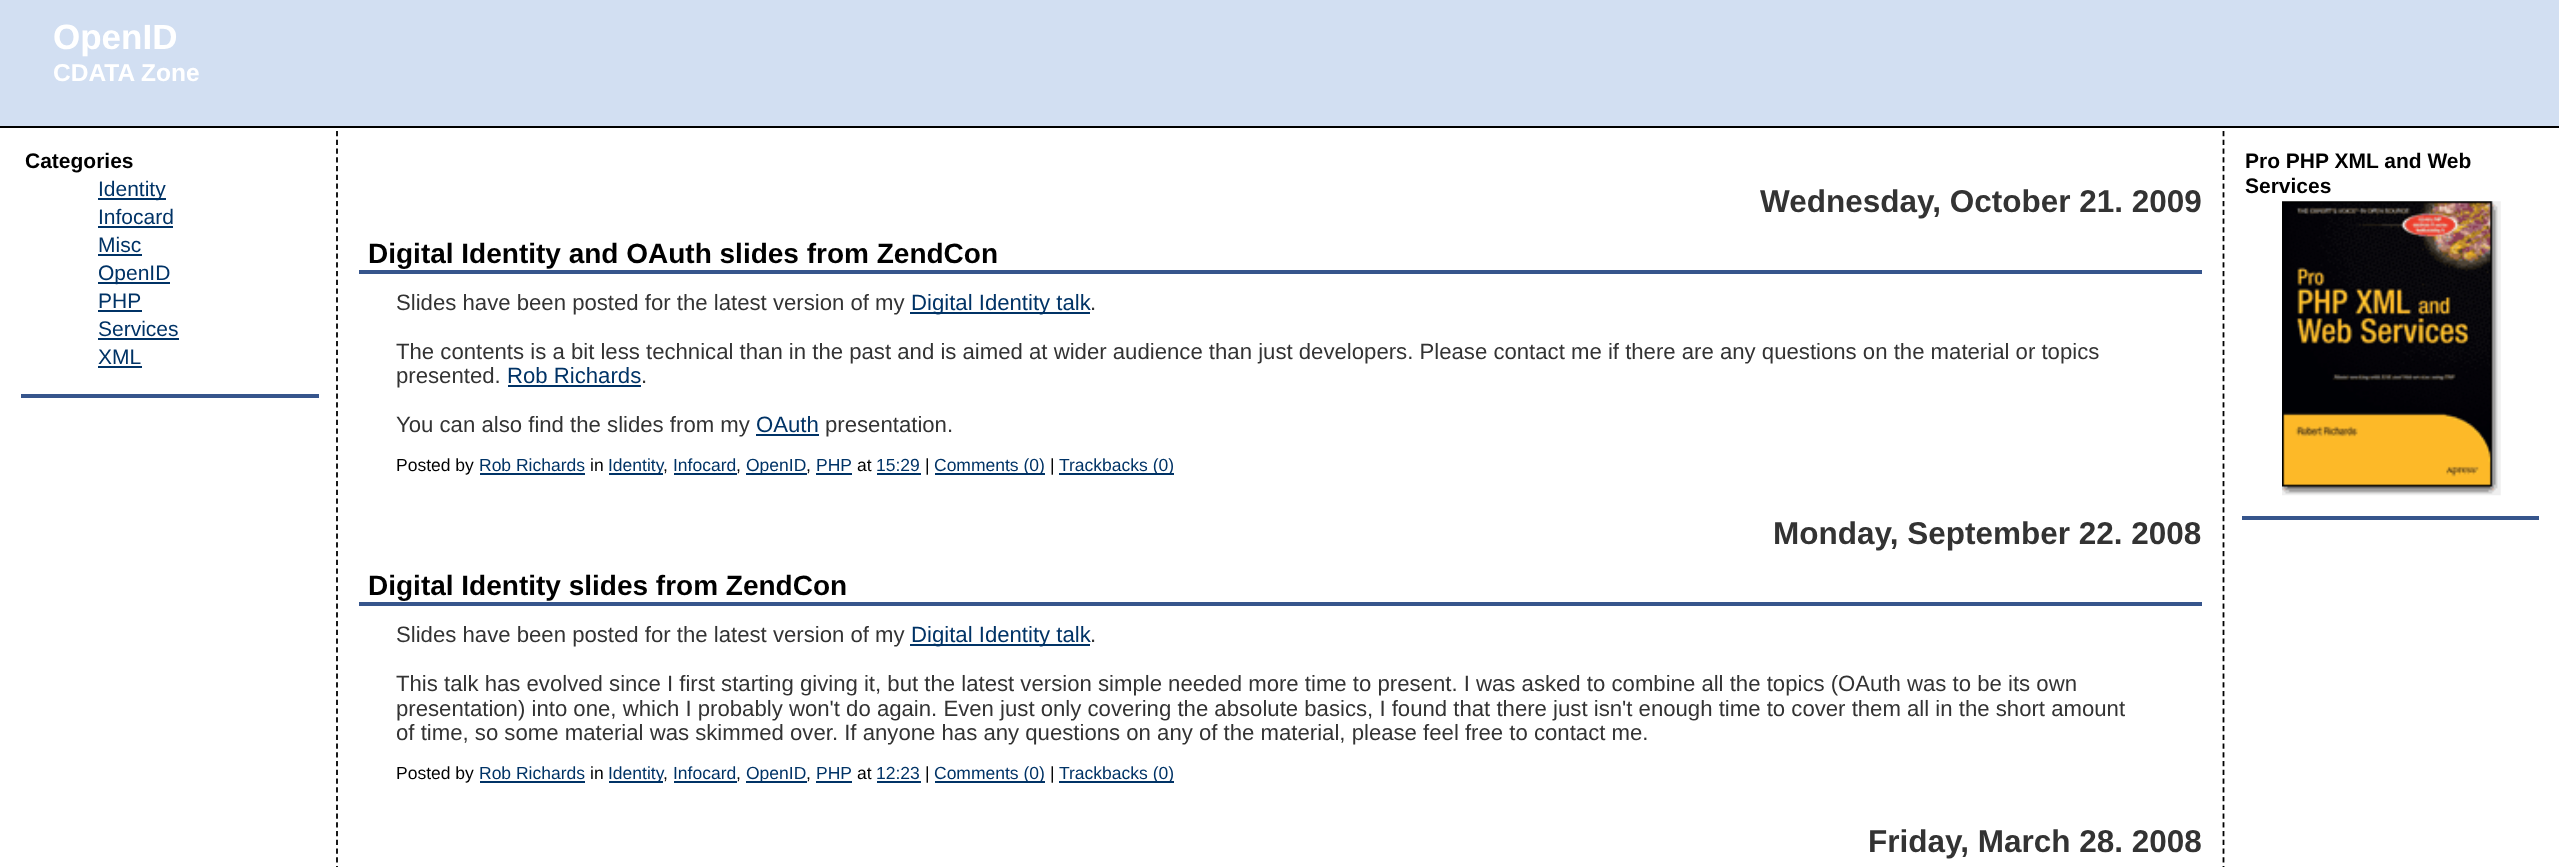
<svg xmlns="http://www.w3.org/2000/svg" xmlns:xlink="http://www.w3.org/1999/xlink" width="2559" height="867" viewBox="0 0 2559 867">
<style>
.cls-1{font:bold 35px Liberation Sans;fill:#ffffff}
.cls-2{font:bold 24.5px Liberation Sans;fill:#ffffff}
.cls-3{font:bold 21px Liberation Sans;fill:#000000}
.cls-4{font:21px Liberation Sans;fill:#003366}
.cls-5{font:bold 31.5px Liberation Sans;fill:#333333}
.cls-6{font:bold 28px Liberation Sans;fill:#000000}
.cls-7{font:22.17px Liberation Sans;fill:#333333}
.cls-8{font:22.17px Liberation Sans;fill:#003366}
.cls-9{font:17.5px Liberation Sans;fill:#000000}
.cls-10{font:17.5px Liberation Sans;fill:#003366}
</style>
<rect width="100%" height="100%" fill="#d2dff2"/>
<rect fill="#ffffff" x="0" y="128" width="2559" height="739"/>
<rect fill="#000000" x="0" y="126" width="2559" height="2"/>
<path fill="none" stroke="#000000" stroke-width="1.8" stroke-dasharray="5.25 3.5" d="M337 131V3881.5"/>
<rect fill="#36558c" x="21" y="394" width="298" height="4"/>
<rect fill="#003366" x="98" y="198" width="68" height="2"/>
<rect fill="#003366" x="98" y="226" width="75" height="2"/>
<rect fill="#003366" x="98" y="254" width="44" height="2"/>
<rect fill="#003366" x="98" y="282" width="72" height="2"/>
<rect fill="#003366" x="98" y="310" width="44" height="2"/>
<rect fill="#003366" x="98" y="338" width="81" height="2"/>
<rect fill="#003366" x="98" y="366" width="44" height="2"/>
<path fill="none" stroke="#000000" stroke-width="1.8" stroke-dasharray="5.25 3.5" d="M2223.5 131V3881.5"/>
<rect fill="#36558c" x="2242" y="516" width="297" height="4"/>
<image xlink:href="image0.png" x="2282" y="201" width="219" height="295"/>
<rect fill="#36558c" x="359" y="270" width="1843" height="4"/>
<rect fill="#003366" x="910" y="312" width="180" height="2"/>
<rect fill="#003366" x="508" y="385" width="133" height="2"/>
<rect fill="#003366" x="756" y="434" width="63" height="2"/>
<rect fill="#003366" x="480" y="473" width="105" height="2"/>
<rect fill="#003366" x="609" y="473" width="54" height="2"/>
<rect fill="#003366" x="674" y="473" width="63" height="2"/>
<rect fill="#003366" x="746" y="473" width="61" height="2"/>
<rect fill="#003366" x="816" y="473" width="36" height="2"/>
<rect fill="#003366" x="877" y="473" width="44" height="2"/>
<rect fill="#003366" x="935" y="473" width="110" height="2"/>
<rect fill="#003366" x="1059" y="473" width="115" height="2"/>
<rect fill="#36558c" x="359" y="602" width="1843" height="4"/>
<rect fill="#003366" x="910" y="644" width="180" height="2"/>
<rect fill="#003366" x="480" y="781" width="105" height="2"/>
<rect fill="#003366" x="609" y="781" width="54" height="2"/>
<rect fill="#003366" x="674" y="781" width="63" height="2"/>
<rect fill="#003366" x="746" y="781" width="61" height="2"/>
<rect fill="#003366" x="816" y="781" width="36" height="2"/>
<rect fill="#003366" x="877" y="781" width="44" height="2"/>
<rect fill="#003366" x="935" y="781" width="110" height="2"/>
<rect fill="#003366" x="1059" y="781" width="115" height="2"/>
<text class="cls-1" x="53" y="49">OpenID</text>
<text class="cls-2" x="53" y="81">CDATA Zone</text>
<text class="cls-3" x="25" y="168">Categories</text>
<text class="cls-4"><tspan x="98" y="196">Identity</tspan><tspan x="98" y="224">Infocard</tspan><tspan x="98" y="252">Misc</tspan><tspan x="98" y="280">OpenID</tspan><tspan x="98" y="308">PHP</tspan><tspan x="98" y="336">Services</tspan><tspan x="98" y="364">XML</tspan></text>
<text class="cls-3"><tspan x="2245" y="168">Pro PHP XML and Web</tspan><tspan x="2245" y="193">Services</tspan></text>
<text class="cls-5" x="1760" y="212">Wednesday, October 21. 2009</text>
<text class="cls-6" x="368" y="263">Digital Identity and OAuth slides from ZendCon</text>
<text class="cls-7" x="396" y="310">Slides have been posted for the latest version of my</text>
<text class="cls-8" x="911" y="310">Digital Identity talk</text>
<text class="cls-7" x="1090" y="310">.</text>
<text class="cls-7"><tspan x="396" y="359">The contents is a bit less technical than in the past and is aimed at wider audience than just developers. Please contact me if there are any questions on the material or topics</tspan><tspan x="396" y="383">presented.</tspan></text>
<text class="cls-8" x="507" y="383">Rob Richards</text>
<text class="cls-7" x="641" y="383">.</text>
<text class="cls-7" x="396" y="432">You can also find the slides from my</text>
<text class="cls-8" x="756" y="432">OAuth</text>
<text class="cls-7" x="825" y="432">presentation.</text>
<text class="cls-9" x="396" y="471">Posted by</text>
<text class="cls-10" x="479" y="471">Rob Richards</text>
<text class="cls-9" x="590" y="471">in</text>
<text class="cls-10" x="608" y="471">Identity</text>
<text class="cls-9" x="663" y="471">,</text>
<text class="cls-10" x="673" y="471">Infocard</text>
<text class="cls-9" x="736" y="471">,</text>
<text class="cls-10" x="746" y="471">OpenID</text>
<text class="cls-9" x="806" y="471">,</text>
<text class="cls-10" x="816" y="471">PHP</text>
<text class="cls-9" x="857" y="471">at</text>
<text class="cls-10" x="876" y="471">15:29</text>
<text class="cls-9" x="925" y="471">|</text>
<text class="cls-10" x="934" y="471">Comments (0)</text>
<text class="cls-9" x="1050" y="471">|</text>
<text class="cls-10" x="1059" y="471">Trackbacks (0)</text>
<text class="cls-5" x="1773" y="544">Monday, September 22. 2008</text>
<text class="cls-6" x="368" y="595">Digital Identity slides from ZendCon</text>
<text class="cls-7" x="396" y="642">Slides have been posted for the latest version of my</text>
<text class="cls-8" x="911" y="642">Digital Identity talk</text>
<text class="cls-7" x="1090" y="642">.</text>
<text class="cls-7"><tspan x="396" y="691">This talk has evolved since I first starting giving it, but the latest version simple needed more time to present. I was asked to combine all the topics (OAuth was to be its own</tspan><tspan x="396" y="716">presentation) into one, which I probably won't do again. Even just only covering the absolute basics, I found that there just isn't enough time to cover them all in the short amount</tspan><tspan x="396" y="740">of time, so some material was skimmed over. If anyone has any questions on any of the material, please feel free to contact me.</tspan></text>
<text class="cls-9" x="396" y="779">Posted by</text>
<text class="cls-10" x="479" y="779">Rob Richards</text>
<text class="cls-9" x="590" y="779">in</text>
<text class="cls-10" x="608" y="779">Identity</text>
<text class="cls-9" x="663" y="779">,</text>
<text class="cls-10" x="673" y="779">Infocard</text>
<text class="cls-9" x="736" y="779">,</text>
<text class="cls-10" x="746" y="779">OpenID</text>
<text class="cls-9" x="806" y="779">,</text>
<text class="cls-10" x="816" y="779">PHP</text>
<text class="cls-9" x="857" y="779">at</text>
<text class="cls-10" x="876" y="779">12:23</text>
<text class="cls-9" x="925" y="779">|</text>
<text class="cls-10" x="934" y="779">Comments (0)</text>
<text class="cls-9" x="1050" y="779">|</text>
<text class="cls-10" x="1059" y="779">Trackbacks (0)</text>
<text class="cls-5" x="1868" y="852">Friday, March 28. 2008</text>
</svg>
